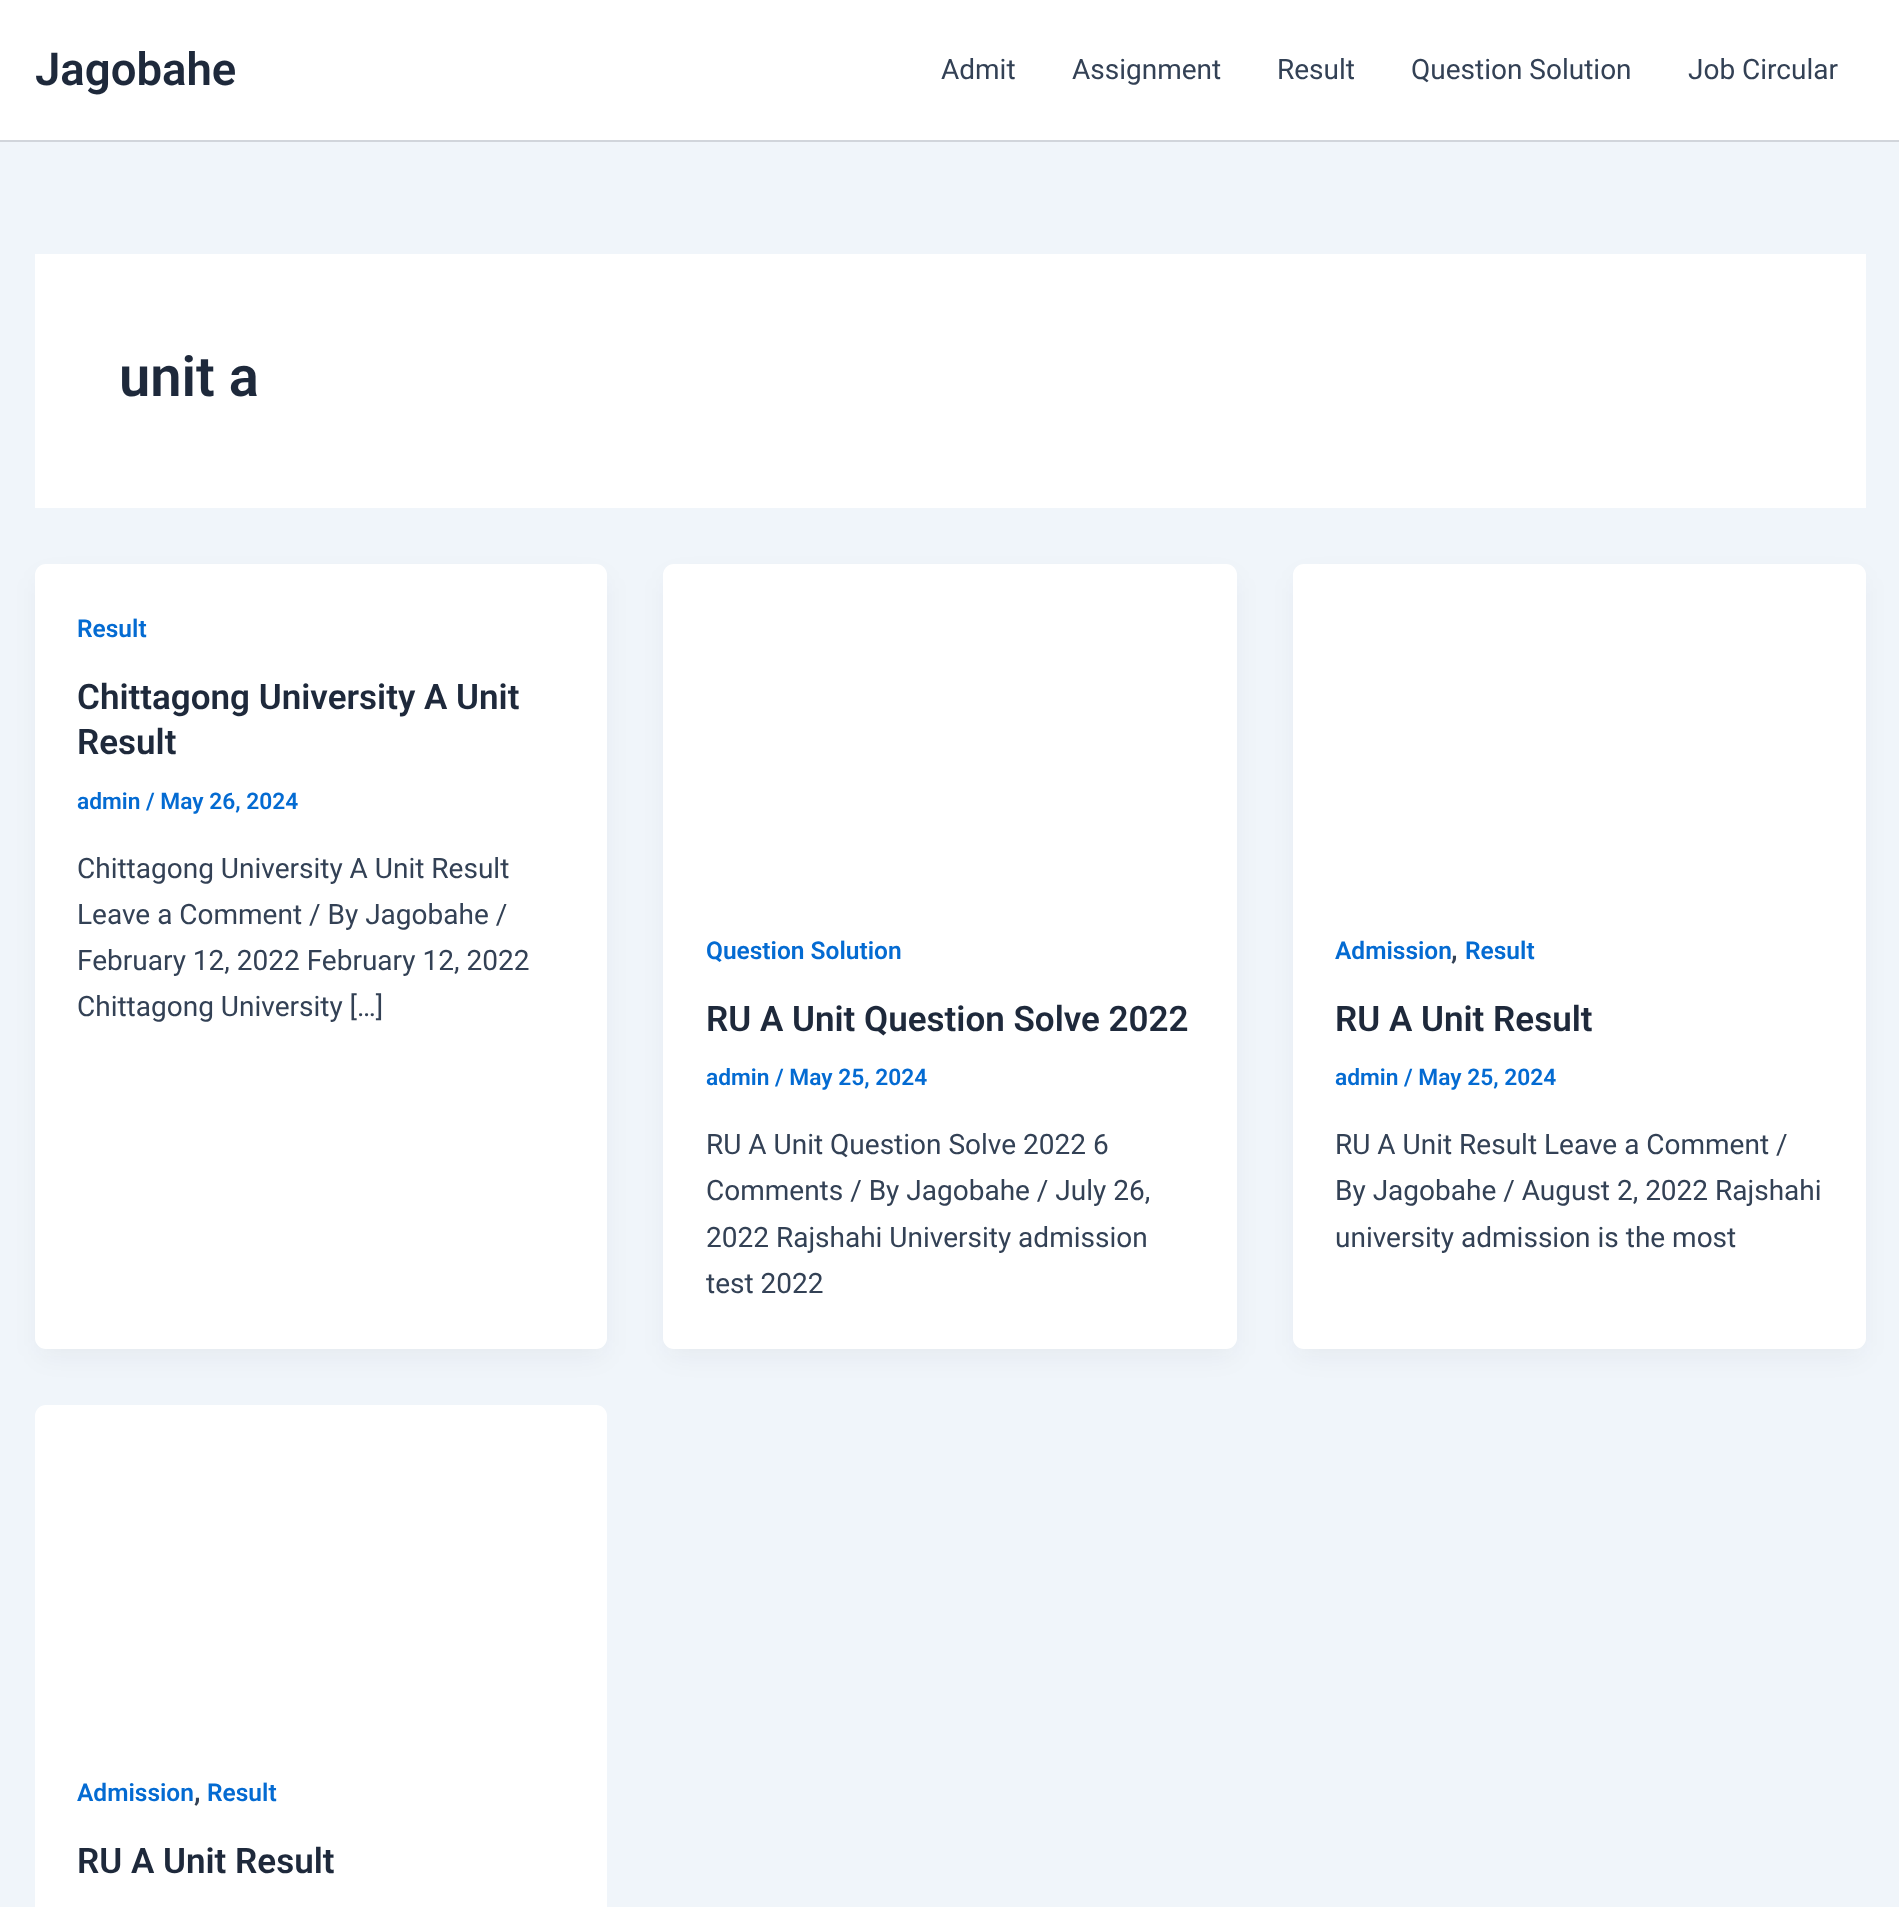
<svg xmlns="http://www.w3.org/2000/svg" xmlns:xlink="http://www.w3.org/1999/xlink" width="1899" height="1907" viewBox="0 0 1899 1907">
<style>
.cls-1{font:600 45.5px Roboto;fill:#1e293b}
.cls-2{font:28px Roboto;fill:#334155}
.cls-3{font:600 56px Roboto;fill:#1e293b}
.cls-4{font:600 24.5px Roboto;fill:#046bd2}
.cls-5{font:600 35px Roboto;fill:#1e293b}
.cls-6{font:600 22.75px Roboto;fill:#046bd2}
.cls-7{font:600 28px Roboto;fill:#334155}
</style>
<rect width="100%" height="100%" fill="#f0f5fa"/>
<rect fill="#ffffff" x="0" y="0" width="1899" height="140"/>
<rect fill="#d1d5db" x="0" y="140" width="1899" height="2"/>
<rect fill="#ffffff" x="35" y="254" width="1831" height="254"/>
<rect fill="#101828" fill-opacity="0.05" filter="blur(13px)" x="39" y="578" width="565" height="778" rx="7"/>
<rect fill="#ffffff" x="35" y="564" width="572" height="785" rx="11"/>
<rect fill="#101828" fill-opacity="0.05" filter="blur(13px)" x="667" y="578" width="567" height="778" rx="7"/>
<rect fill="#ffffff" x="663" y="564" width="574" height="785" rx="11"/>
<rect fill="#101828" fill-opacity="0.05" filter="blur(13px)" x="1297" y="578" width="565" height="778" rx="7"/>
<rect fill="#ffffff" x="1293" y="564" width="573" height="785" rx="11"/>
<rect fill="#ffffff" x="35" y="1405" width="572" height="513" rx="11"/>
<text class="cls-1" x="35" y="85">Jagobahe</text>
<text class="cls-2" x="941" y="79">Admit</text>
<text class="cls-2" x="1072" y="79">Assignment</text>
<text class="cls-2" x="1277" y="79">Result</text>
<text class="cls-2" x="1411" y="79">Question Solution</text>
<text class="cls-2" x="1688" y="79">Job Circular</text>
<text class="cls-3" x="119" y="396">unit a</text>
<text class="cls-4" x="77" y="637">Result</text>
<text class="cls-5"><tspan x="77" y="709">Chittagong University A Unit</tspan><tspan x="77" y="754">Result</tspan></text>
<text class="cls-6" x="77" y="809">admin / May 26, 2024</text>
<text class="cls-2"><tspan x="77" y="878">Chittagong University A Unit Result</tspan><tspan x="77" y="924">Leave a Comment / By Jagobahe /</tspan><tspan x="77" y="970">February 12, 2022 February 12, 2022</tspan><tspan x="77" y="1016">Chittagong University […]</tspan></text>
<text class="cls-4" x="706" y="959">Question Solution</text>
<text class="cls-5" x="706" y="1031">RU A Unit Question Solve 2022</text>
<text class="cls-6" x="706" y="1085">admin / May 25, 2024</text>
<text class="cls-2"><tspan x="706" y="1154">RU A Unit Question Solve 2022 6</tspan><tspan x="706" y="1200">Comments / By Jagobahe / July 26,</tspan><tspan x="706" y="1247">2022 Rajshahi University admission</tspan><tspan x="706" y="1293">test 2022</tspan></text>
<text class="cls-4" x="1335" y="959">Admission</text>
<text class="cls-7" x="1451" y="959">,</text>
<text class="cls-4" x="1465" y="959">Result</text>
<text class="cls-5" x="1335" y="1031">RU A Unit Result</text>
<text class="cls-6" x="1335" y="1085">admin / May 25, 2024</text>
<text class="cls-2"><tspan x="1335" y="1154">RU A Unit Result Leave a Comment /</tspan><tspan x="1335" y="1200">By Jagobahe / August 2, 2022 Rajshahi</tspan><tspan x="1335" y="1247">university admission is the most</tspan></text>
<text class="cls-4" x="77" y="1801">Admission</text>
<text class="cls-7" x="194" y="1801">,</text>
<text class="cls-4" x="207" y="1801">Result</text>
<text class="cls-5" x="77" y="1873">RU A Unit Result</text>
</svg>
